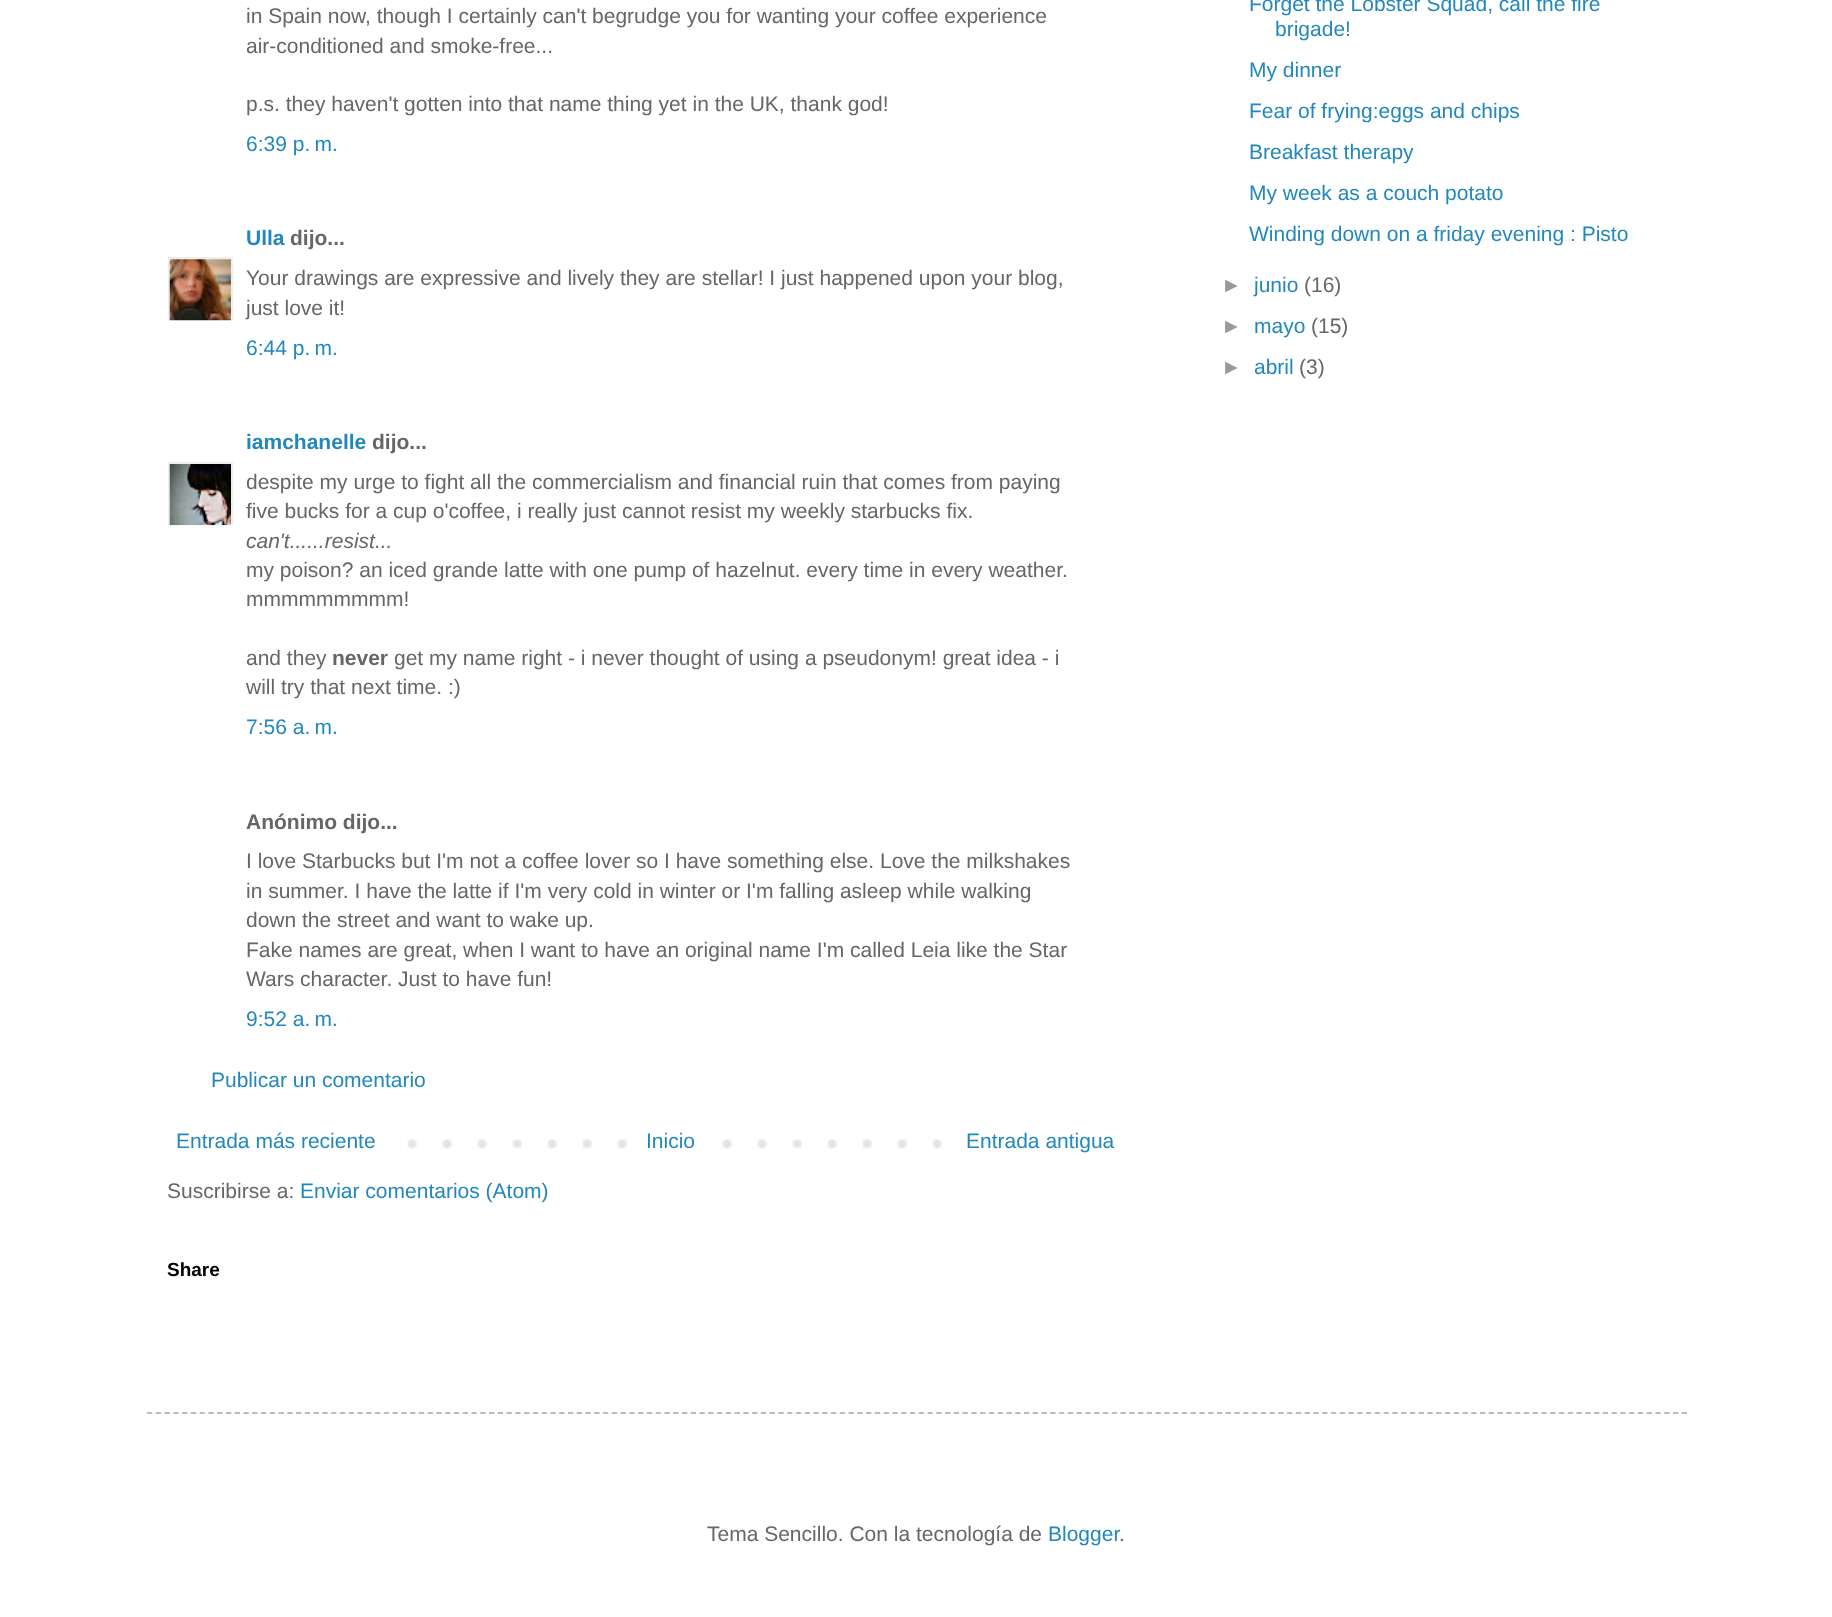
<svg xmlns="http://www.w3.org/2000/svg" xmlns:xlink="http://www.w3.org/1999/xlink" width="1832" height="1617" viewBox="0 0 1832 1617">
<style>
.cls-1{font:21px Liberation Sans;fill:#666666}
.cls-2{font:21px Liberation Sans;fill:#2288bb}
.cls-3{font:bold 21px Liberation Sans;fill:#2288bb}
.cls-4{font:bold 21px Liberation Sans;fill:#666666}
.cls-5{font:italic 21px Liberation Sans;fill:#666666}
.cls-6{font:bold 19px Liberation Sans;fill:#000000}
.cls-7{font:21px Liberation Sans;fill:#999999}
</style>
<defs>
<clipPath id="clip1"><rect x="168" y="257" width="65" height="63"/></clipPath>
<clipPath id="clip2"><rect x="168" y="462" width="65" height="63"/></clipPath>
</defs>
<rect width="100%" height="100%" fill="#ffffff"/>
<g clip-path="url(#clip1)">
<rect fill="none" stroke="#eeeeee" stroke-width="2" x="169" y="258" width="63" height="63"/>
</g>
<image xlink:href="image0.png" x="169" y="259" width="62" height="62"/>
<g clip-path="url(#clip2)">
<rect fill="none" stroke="#eeeeee" stroke-width="2" x="169" y="463" width="63" height="63"/>
</g>
<image xlink:href="image1.png" x="169" y="464" width="62" height="62"/>
<image xlink:href="image2.png" x="407" y="1139" width="535" height="10"/>
<rect fill="#ffffff" x="652" y="1139" width="46" height="10"/>
<path fill="none" stroke="#bbbbbb" stroke-width="1.8" stroke-dasharray="5.25 3.52" d="M147 1413H1687"/>
<text class="cls-1"><tspan x="246" y="23">in Spain now, though I certainly can't begrudge you for wanting your coffee experience</tspan><tspan x="246" y="53">air-conditioned and smoke-free...</tspan></text>
<text class="cls-1" x="246" y="111">p.s. they haven't gotten into that name thing yet in the UK, thank god!</text>
<text class="cls-2" x="246" y="151">6:39 p. m.</text>
<text class="cls-3" x="246" y="245">Ulla</text>
<text class="cls-4" x="290" y="245">dijo...</text>
<text class="cls-1"><tspan x="246" y="285">Your drawings are expressive and lively they are stellar! I just happened upon your blog,</tspan><tspan x="246" y="315">just love it!</tspan></text>
<text class="cls-2" x="246" y="355">6:44 p. m.</text>
<text class="cls-3" x="246" y="449">iamchanelle</text>
<text class="cls-4" x="372" y="449">dijo...</text>
<text class="cls-1"><tspan x="246" y="489">despite my urge to fight all the commercialism and financial ruin that comes from paying</tspan><tspan x="246" y="518">five bucks for a cup o'coffee, i really just cannot resist my weekly starbucks fix.</tspan></text>
<text class="cls-5" x="246" y="548">can't......resist...</text>
<text class="cls-1"><tspan x="246" y="577">my poison? an iced grande latte with one pump of hazelnut. every time in every weather.</tspan><tspan x="246" y="606">mmmmmmmmm!</tspan></text>
<text class="cls-1" x="246" y="665">and they</text>
<text class="cls-4" x="332" y="665">never</text>
<text class="cls-1" x="394" y="665">get my name right - i never thought of using a pseudonym! great idea - i</text>
<text class="cls-1" x="246" y="694">will try that next time. :)</text>
<text class="cls-2" x="246" y="734">7:56 a. m.</text>
<text class="cls-4" x="246" y="829">Anónimo dijo...</text>
<text class="cls-1"><tspan x="246" y="868">I love Starbucks but I'm not a coffee lover so I have something else. Love the milkshakes</tspan><tspan x="246" y="898">in summer. I have the latte if I'm very cold in winter or I'm falling asleep while walking</tspan><tspan x="246" y="927">down the street and want to wake up.</tspan><tspan x="246" y="957">Fake names are great, when I want to have an original name I'm called Leia like the Star</tspan><tspan x="246" y="986">Wars character. Just to have fun!</tspan></text>
<text class="cls-2" x="246" y="1026">9:52 a. m.</text>
<text class="cls-2" x="211" y="1087">Publicar un comentario</text>
<text class="cls-2" x="176" y="1148">Entrada más reciente</text>
<text class="cls-2" x="646" y="1148">Inicio</text>
<text class="cls-2" x="966" y="1148">Entrada antigua</text>
<text class="cls-1" x="167" y="1198">Suscribirse a:</text>
<text class="cls-2" x="300" y="1198">Enviar comentarios (Atom)</text>
<text class="cls-6" x="167" y="1276">Share</text>
<text class="cls-2" x="1249" y="11">Forget the Lobster Squad, call the fire</text>
<text class="cls-2" x="1275" y="36">brigade!</text>
<text class="cls-2"><tspan x="1249" y="77">My dinner</tspan><tspan x="1249" y="118">Fear of frying:eggs and chips</tspan><tspan x="1249" y="159">Breakfast therapy</tspan><tspan x="1249" y="200">My week as a couch potato</tspan><tspan x="1249" y="241">Winding down on a friday evening : Pisto</tspan></text>
<text class="cls-7" x="1221" y="292">►</text>
<text class="cls-2" x="1254" y="292">junio</text>
<text class="cls-1" x="1304" y="292">(16)</text>
<text class="cls-7" x="1221" y="333">►</text>
<text class="cls-2" x="1254" y="333">mayo</text>
<text class="cls-1" x="1311" y="333">(15)</text>
<text class="cls-7" x="1221" y="374">►</text>
<text class="cls-2" x="1254" y="374">abril</text>
<text class="cls-1" x="1299" y="374">(3)</text>
<text class="cls-1" x="707" y="1541">Tema Sencillo. Con la tecnología de</text>
<text class="cls-2" x="1048" y="1541">Blogger</text>
<text class="cls-1" x="1119" y="1541">.</text>
</svg>
